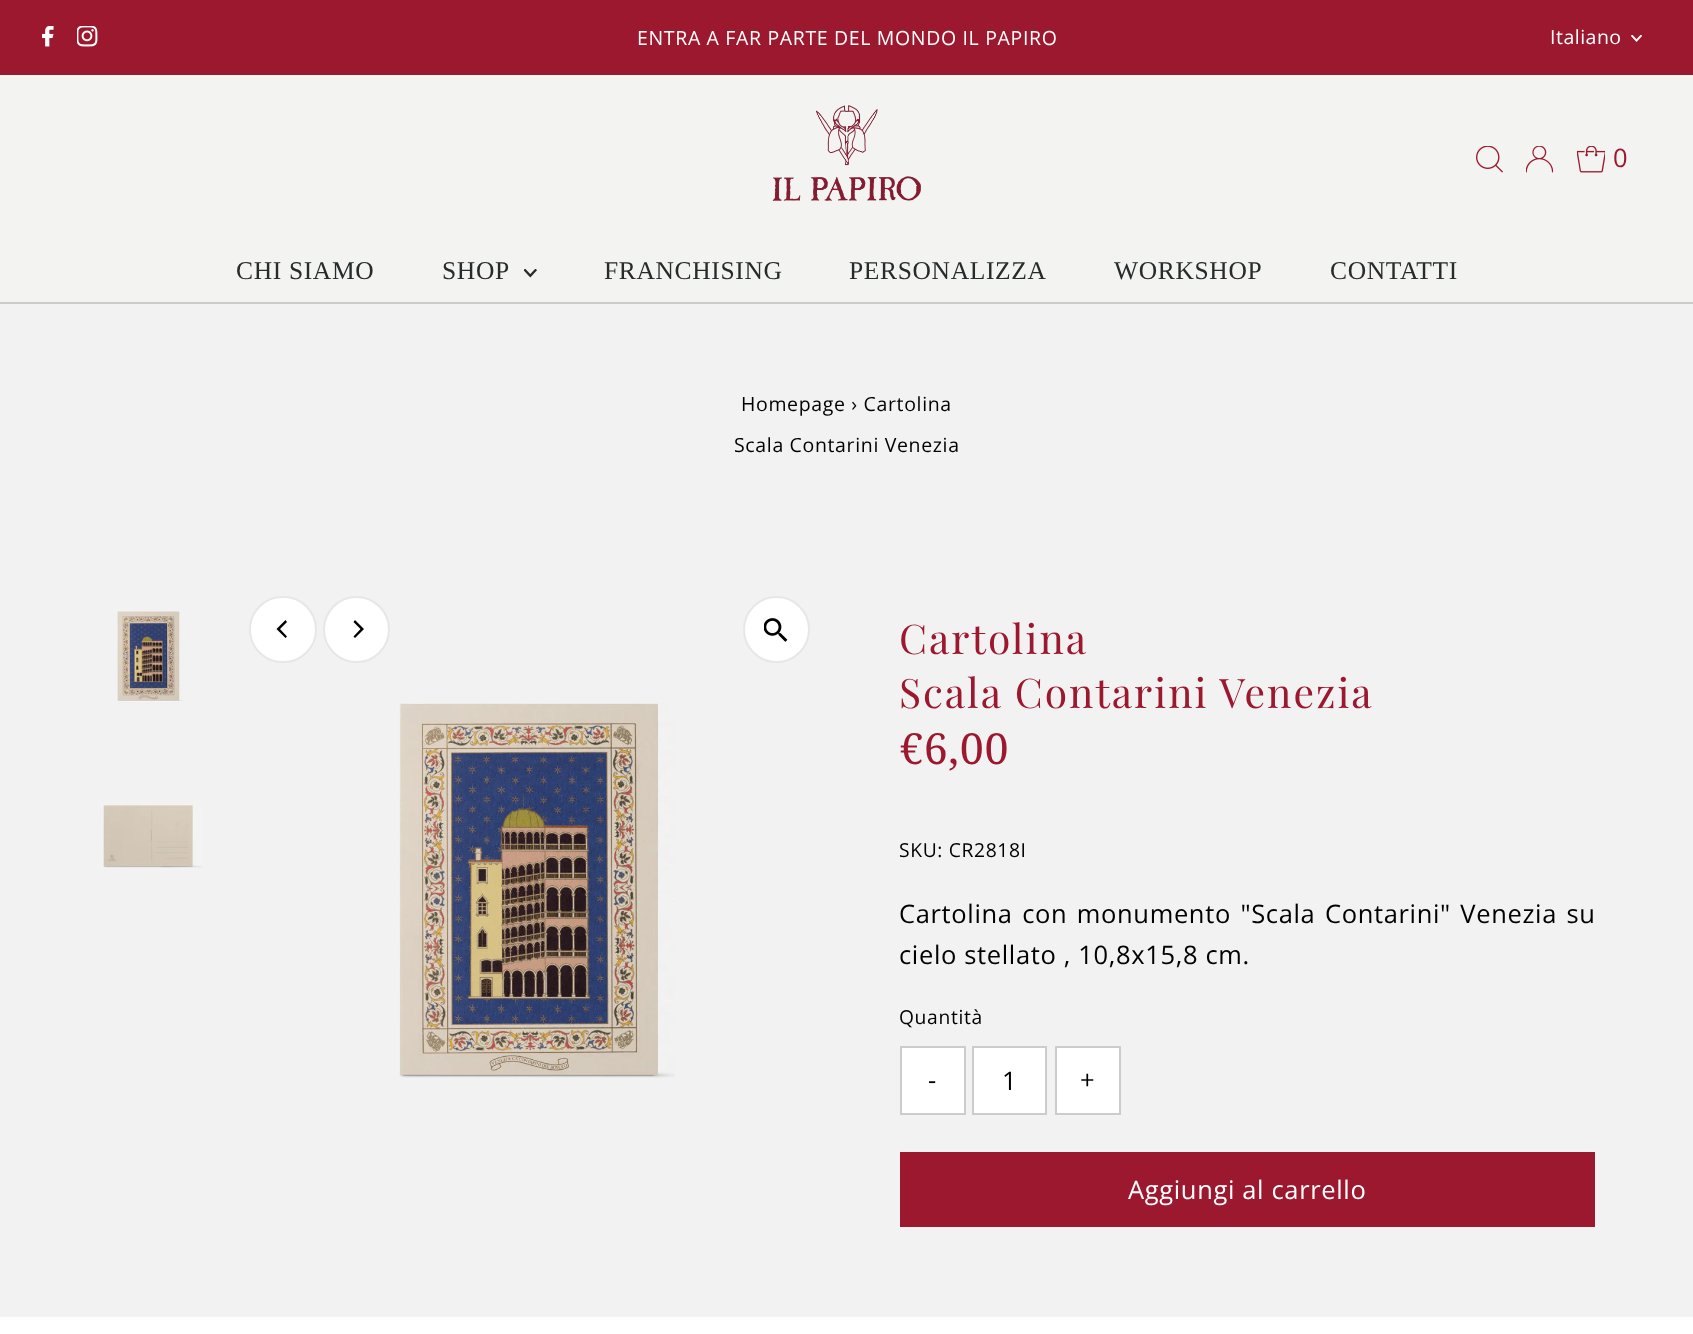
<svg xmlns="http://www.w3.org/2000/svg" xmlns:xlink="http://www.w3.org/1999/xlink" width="1693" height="1334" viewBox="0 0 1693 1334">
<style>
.cls-1{font:19.5px Open Sans;letter-spacing:0.65px;fill:#ffffff}
.cls-2{font:19.5px Open Sans;letter-spacing:0.5px;fill:#ffffff}
.cls-3{font:25.5px Open Sans;letter-spacing:0.65px;fill:#9c182f}
.cls-4{font:25.5px Liberation Serif;letter-spacing:0.65px;fill:#262b2c}
.cls-5{font:19.5px Open Sans;letter-spacing:0.65px;fill:#000000}
.cls-6{font:40.75px Playfair Display;letter-spacing:2px;fill:#9c182f}
.cls-7{font:43px Noto Serif;letter-spacing:0.65px;fill:#9c182f}
.cls-8{font:19.25px Open Sans;letter-spacing:0.65px;fill:#000000}
.cls-9{font:25.5px Open Sans;letter-spacing:0.65px;fill:#000000}
.cls-10{font:25.5px Open Sans;letter-spacing:0.65px;fill:#ffffff}
</style>
<rect width="100%" height="100%" fill="#ffffff"/>
<rect fill="#9c182f" x="0" y="0" width="1693" height="75"/>
<image xlink:href="image0.png" x="42" y="26" width="12" height="21"/>
<image xlink:href="image1.png" x="77" y="26" width="21" height="21"/>
<image xlink:href="image2.png" x="1631" y="35" width="11" height="7"/>
<rect fill="#f3f3f1" x="0" y="75" width="1693" height="227"/>
<rect fill="#cccccc" x="0" y="302" width="1693" height="2"/>
<image xlink:href="image3.png" x="772" y="105" width="149" height="96"/>
<image xlink:href="image4.png" x="1476" y="146" width="27" height="27"/>
<image xlink:href="image5.png" x="1526" y="146" width="27" height="27"/>
<image xlink:href="image6.png" x="1577" y="146" width="28" height="27"/>
<image xlink:href="image7.png" x="524" y="269" width="13" height="9"/>
<rect fill="#f2f2f2" x="0" y="304" width="1693" height="1013"/>
<image xlink:href="image8.png" x="117" y="611" width="66" height="92"/>
<image xlink:href="image9.png" x="102" y="804" width="100" height="64"/>
<rect fill="#ffffff" stroke="#e7e7e7" stroke-width="2" x="250" y="597" width="66" height="65" rx="32.5"/>
<path fill="#000000" d="M276.5 629L285.5 638L287 636.5L280 629L287 622L285.5 620Z"/>
<circle fill="#ffffff" stroke="#e7e7e7" stroke-width="2" cx="356.5" cy="629.5" r="32.5"/>
<path fill="#000000" d="M364 629L355 620L353.5 622L360.5 629L353.5 636.5L355 638Z"/>
<circle fill="#ffffff" stroke="#e7e7e7" stroke-width="2" cx="776.5" cy="629.5" r="32.5"/>
<image xlink:href="image10.png" x="764" y="618" width="24" height="24"/>
<image xlink:href="image11.png" x="399" y="703" width="276" height="375"/>
<rect fill="#ffffff" stroke="#cccccc" stroke-width="2" x="901" y="1047" width="64" height="67"/>
<rect fill="#ffffff" stroke="#cccccc" stroke-width="2" x="973" y="1047" width="73" height="67"/>
<rect fill="#ffffff" stroke="#cccccc" stroke-width="2" x="1056" y="1047" width="64" height="67"/>
<rect fill="#9c182f" x="900" y="1152" width="695" height="75"/>
<text class="cls-1" x="637" y="45">ENTRA A FAR PARTE DEL MONDO IL PAPIRO</text>
<text class="cls-2" x="1550" y="44">Italiano</text>
<text class="cls-3" x="1613" y="167">0</text>
<text class="cls-4" x="236" y="279">CHI SIAMO</text>
<text class="cls-4" x="442" y="279">SHOP</text>
<text class="cls-4" x="604" y="279">FRANCHISING</text>
<text class="cls-4" x="849" y="279">PERSONALIZZA</text>
<text class="cls-4" x="1114" y="279">WORKSHOP</text>
<text class="cls-4" x="1330" y="279">CONTATTI</text>
<text class="cls-5" x="741" y="411">Homepage › Cartolina</text>
<text class="cls-5" x="734" y="452">Scala Contarini Venezia</text>
<text class="cls-6"><tspan x="899" y="654">Cartolina</tspan><tspan x="899" y="708">Scala Contarini Venezia</tspan></text>
<text class="cls-7" x="899" y="764">€6,00</text>
<text class="cls-8" x="899" y="857">SKU: CR2818I</text>
<text class="cls-9"><tspan x="899" y="923" word-spacing="2.25">Cartolina con monumento "Scala Contarini" Venezia su</tspan><tspan x="899" y="964">cielo stellato , 10,8x15,8 cm.</tspan></text>
<text class="cls-8" x="899" y="1024">Quantità</text>
<text class="cls-9" x="928" y="1089">-</text>
<text class="cls-9" x="1002" y="1090">1</text>
<text class="cls-9" x="1080" y="1089">+</text>
<text class="cls-10" x="1128" y="1199">Aggiungi al carrello</text>
</svg>
